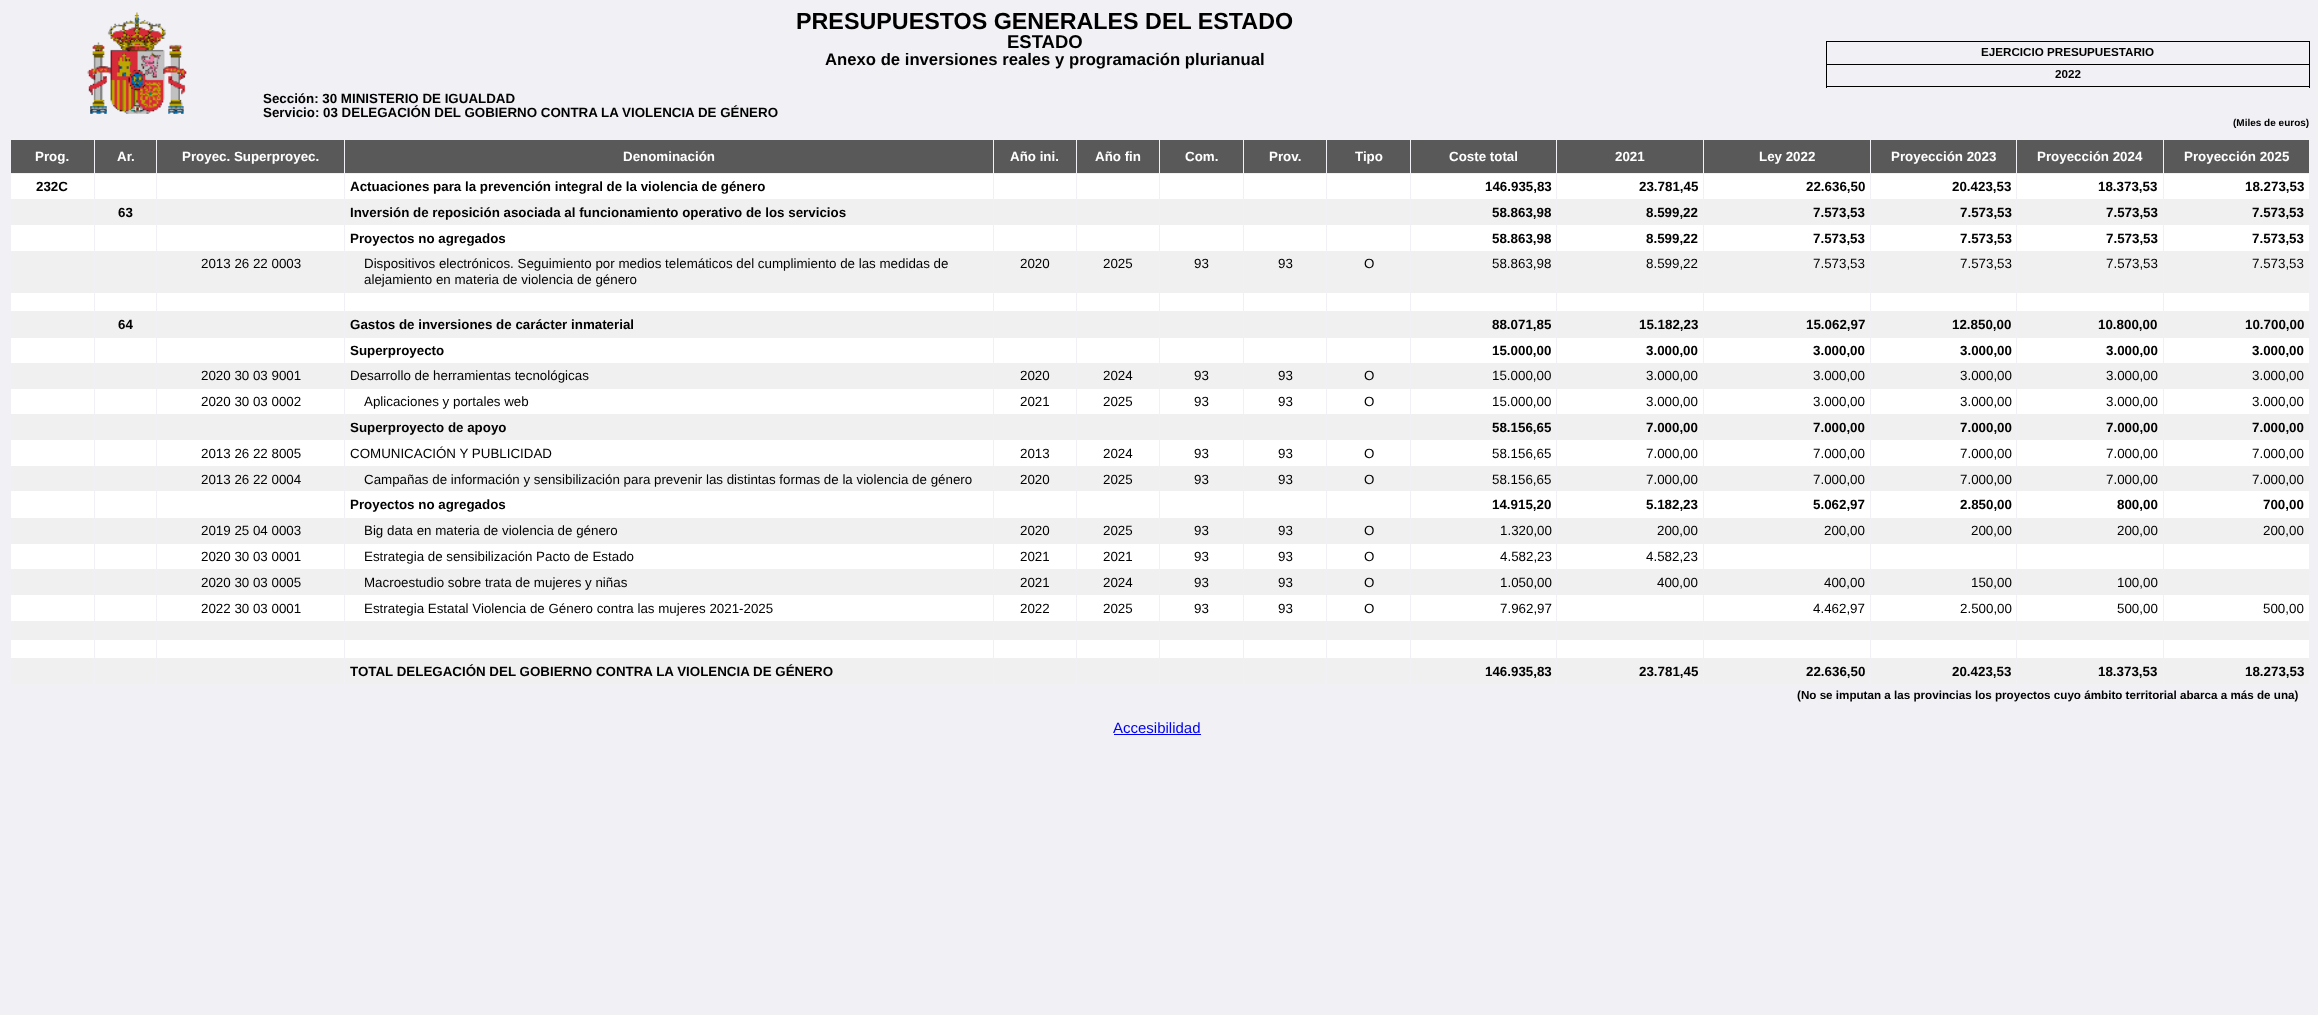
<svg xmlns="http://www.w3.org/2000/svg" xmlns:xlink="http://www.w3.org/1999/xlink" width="2318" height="1015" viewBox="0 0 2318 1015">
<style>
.cls-1{font:bold 23.3px Liberation Sans;fill:#000000}
.cls-2{font:bold 18.5px Liberation Sans;fill:#000000}
.cls-3{font:bold 16.7px Liberation Sans;fill:#000000}
.cls-4{font:bold 13.35px Liberation Sans;fill:#000000}
.cls-5{font:bold 11.65px Liberation Sans;fill:#000000}
.cls-6{font:bold 10px Liberation Sans;fill:#000000}
.cls-7{font:bold 13.35px Liberation Sans;fill:#ffffff}
.cls-8{font:13.35px Liberation Sans;fill:#000000}
.cls-9{font:15px Liberation Sans;fill:#0000ee}
</style>
<rect width="100%" height="100%" fill="#f0f0f5"/>
<image xlink:href="image0.png" x="87" y="12" width="100" height="102"/>
<rect fill="#000000" x="1826" y="41" width="484" height="1"/>
<rect fill="#000000" x="2309" y="41" width="1" height="47"/>
<rect fill="#000000" x="1826" y="86" width="484" height="1"/>
<rect fill="#000000" x="1826" y="41" width="1" height="47"/>
<rect fill="#000000" x="1826" y="64" width="484" height="1"/>
<rect fill="#595959" x="11" y="140" width="2298" height="33"/>
<rect fill="#ffffff" x="11" y="174" width="2298" height="25"/>
<rect fill="#f0f0f0" x="11" y="199" width="2298" height="26"/>
<rect fill="#ffffff" x="11" y="225" width="2298" height="26"/>
<rect fill="#f0f0f0" x="11" y="251" width="2298" height="42"/>
<rect fill="#ffffff" x="11" y="293" width="2298" height="18"/>
<rect fill="#f0f0f0" x="11" y="311" width="2298" height="27"/>
<rect fill="#ffffff" x="11" y="338" width="2298" height="25"/>
<rect fill="#f0f0f0" x="11" y="363" width="2298" height="26"/>
<rect fill="#ffffff" x="11" y="389" width="2298" height="25"/>
<rect fill="#f0f0f0" x="11" y="414" width="2298" height="26"/>
<rect fill="#ffffff" x="11" y="440" width="2298" height="26"/>
<rect fill="#f0f0f0" x="11" y="466" width="2298" height="25"/>
<rect fill="#ffffff" x="11" y="491" width="2298" height="27"/>
<rect fill="#f0f0f0" x="11" y="518" width="2298" height="26"/>
<rect fill="#ffffff" x="11" y="544" width="2298" height="25"/>
<rect fill="#f0f0f0" x="11" y="569" width="2298" height="26"/>
<rect fill="#ffffff" x="11" y="595" width="2298" height="26"/>
<rect fill="#f0f0f0" x="11" y="621" width="2298" height="19"/>
<rect fill="#ffffff" x="11" y="640" width="2298" height="18"/>
<rect fill="#f0f0f0" x="11" y="658" width="2298" height="26"/>
<rect fill="#f0f0f5" x="94" y="139" width="1" height="546"/>
<rect fill="#f0f0f5" x="156" y="139" width="1" height="546"/>
<rect fill="#f0f0f5" x="344" y="139" width="1" height="546"/>
<rect fill="#f0f0f5" x="993" y="139" width="1" height="546"/>
<rect fill="#f0f0f5" x="1076" y="139" width="1" height="546"/>
<rect fill="#f0f0f5" x="1159" y="139" width="1" height="546"/>
<rect fill="#f0f0f5" x="1243" y="139" width="1" height="546"/>
<rect fill="#f0f0f5" x="1326" y="139" width="1" height="546"/>
<rect fill="#f0f0f5" x="1410" y="139" width="1" height="546"/>
<rect fill="#f0f0f5" x="1556" y="139" width="1" height="546"/>
<rect fill="#f0f0f5" x="1703" y="139" width="1" height="546"/>
<rect fill="#f0f0f5" x="1870" y="139" width="1" height="546"/>
<rect fill="#f0f0f5" x="2016" y="139" width="1" height="546"/>
<rect fill="#f0f0f5" x="2163" y="139" width="1" height="546"/>
<rect fill="#0000ee" x="1114" y="734" width="87" height="1"/>
<text class="cls-1" x="796" y="29">PRESUPUESTOS GENERALES DEL ESTADO</text>
<text class="cls-2" x="1007" y="48">ESTADO</text>
<text class="cls-3" x="825" y="65">Anexo de inversiones reales y programación plurianual</text>
<text class="cls-4"><tspan x="263" y="103">Sección: 30 MINISTERIO DE IGUALDAD</tspan><tspan x="263" y="117">Servicio: 03 DELEGACIÓN DEL GOBIERNO CONTRA LA VIOLENCIA DE GÉNERO</tspan></text>
<text class="cls-5" x="1981" y="56">EJERCICIO PRESUPUESTARIO</text>
<text class="cls-5" x="2055" y="78">2022</text>
<text class="cls-6" x="2233" y="126">(Miles de euros)</text>
<text class="cls-7" x="35" y="161">Prog.</text>
<text class="cls-7" x="117" y="161">Ar.</text>
<text class="cls-7" x="182" y="161">Proyec. Superproyec.</text>
<text class="cls-7" x="623" y="161">Denominación</text>
<text class="cls-7" x="1010" y="161">Año ini.</text>
<text class="cls-7" x="1095" y="161">Año fin</text>
<text class="cls-7" x="1185" y="161">Com.</text>
<text class="cls-7" x="1269" y="161">Prov.</text>
<text class="cls-7" x="1355" y="161">Tipo</text>
<text class="cls-7" x="1449" y="161">Coste total</text>
<text class="cls-7" x="1615" y="161">2021</text>
<text class="cls-7" x="1759" y="161">Ley 2022</text>
<text class="cls-7" x="1891" y="161">Proyección 2023</text>
<text class="cls-7" x="2037" y="161">Proyección 2024</text>
<text class="cls-7" x="2184" y="161">Proyección 2025</text>
<text class="cls-4" x="36" y="191">232C</text>
<text class="cls-4" x="350" y="191">Actuaciones para la prevención integral de la violencia de género</text>
<text class="cls-4" x="1485" y="191">146.935,83</text>
<text class="cls-4" x="1639" y="191">23.781,45</text>
<text class="cls-4" x="1806" y="191">22.636,50</text>
<text class="cls-4" x="1952" y="191">20.423,53</text>
<text class="cls-4" x="2098" y="191">18.373,53</text>
<text class="cls-4" x="2245" y="191">18.273,53</text>
<text class="cls-4" x="118" y="217">63</text>
<text class="cls-4" x="350" y="217">Inversión de reposición asociada al funcionamiento operativo de los servicios</text>
<text class="cls-4" x="1492" y="217">58.863,98</text>
<text class="cls-4" x="1646" y="217">8.599,22</text>
<text class="cls-4" x="1813" y="217">7.573,53</text>
<text class="cls-4" x="1960" y="217">7.573,53</text>
<text class="cls-4" x="2106" y="217">7.573,53</text>
<text class="cls-4" x="2252" y="217">7.573,53</text>
<text class="cls-4" x="350" y="243">Proyectos no agregados</text>
<text class="cls-4" x="1492" y="243">58.863,98</text>
<text class="cls-4" x="1646" y="243">8.599,22</text>
<text class="cls-4" x="1813" y="243">7.573,53</text>
<text class="cls-4" x="1960" y="243">7.573,53</text>
<text class="cls-4" x="2106" y="243">7.573,53</text>
<text class="cls-4" x="2252" y="243">7.573,53</text>
<text class="cls-8" x="201" y="268">2013 26 22 0003</text>
<text class="cls-8"><tspan x="364" y="268">Dispositivos electrónicos. Seguimiento por medios telemáticos del cumplimiento de las medidas de</tspan><tspan x="364" y="284">alejamiento en materia de violencia de género</tspan></text>
<text class="cls-8" x="1020" y="268">2020</text>
<text class="cls-8" x="1103" y="268">2025</text>
<text class="cls-8" x="1194" y="268">93</text>
<text class="cls-8" x="1278" y="268">93</text>
<text class="cls-8" x="1364" y="268">O</text>
<text class="cls-8" x="1492" y="268">58.863,98</text>
<text class="cls-8" x="1646" y="268">8.599,22</text>
<text class="cls-8" x="1813" y="268">7.573,53</text>
<text class="cls-8" x="1960" y="268">7.573,53</text>
<text class="cls-8" x="2106" y="268">7.573,53</text>
<text class="cls-8" x="2252" y="268">7.573,53</text>
<text class="cls-4" x="118" y="329">64</text>
<text class="cls-4" x="350" y="329">Gastos de inversiones de carácter inmaterial</text>
<text class="cls-4" x="1492" y="329">88.071,85</text>
<text class="cls-4" x="1639" y="329">15.182,23</text>
<text class="cls-4" x="1806" y="329">15.062,97</text>
<text class="cls-4" x="1952" y="329">12.850,00</text>
<text class="cls-4" x="2098" y="329">10.800,00</text>
<text class="cls-4" x="2245" y="329">10.700,00</text>
<text class="cls-4" x="350" y="355">Superproyecto</text>
<text class="cls-4" x="1492" y="355">15.000,00</text>
<text class="cls-4" x="1646" y="355">3.000,00</text>
<text class="cls-4" x="1813" y="355">3.000,00</text>
<text class="cls-4" x="1960" y="355">3.000,00</text>
<text class="cls-4" x="2106" y="355">3.000,00</text>
<text class="cls-4" x="2252" y="355">3.000,00</text>
<text class="cls-8" x="201" y="380">2020 30 03 9001</text>
<text class="cls-8" x="350" y="380">Desarrollo de herramientas tecnológicas</text>
<text class="cls-8" x="1020" y="380">2020</text>
<text class="cls-8" x="1103" y="380">2024</text>
<text class="cls-8" x="1194" y="380">93</text>
<text class="cls-8" x="1278" y="380">93</text>
<text class="cls-8" x="1364" y="380">O</text>
<text class="cls-8" x="1492" y="380">15.000,00</text>
<text class="cls-8" x="1646" y="380">3.000,00</text>
<text class="cls-8" x="1813" y="380">3.000,00</text>
<text class="cls-8" x="1960" y="380">3.000,00</text>
<text class="cls-8" x="2106" y="380">3.000,00</text>
<text class="cls-8" x="2252" y="380">3.000,00</text>
<text class="cls-8" x="201" y="406">2020 30 03 0002</text>
<text class="cls-8" x="364" y="406">Aplicaciones y portales web</text>
<text class="cls-8" x="1020" y="406">2021</text>
<text class="cls-8" x="1103" y="406">2025</text>
<text class="cls-8" x="1194" y="406">93</text>
<text class="cls-8" x="1278" y="406">93</text>
<text class="cls-8" x="1364" y="406">O</text>
<text class="cls-8" x="1492" y="406">15.000,00</text>
<text class="cls-8" x="1646" y="406">3.000,00</text>
<text class="cls-8" x="1813" y="406">3.000,00</text>
<text class="cls-8" x="1960" y="406">3.000,00</text>
<text class="cls-8" x="2106" y="406">3.000,00</text>
<text class="cls-8" x="2252" y="406">3.000,00</text>
<text class="cls-4" x="350" y="432">Superproyecto de apoyo</text>
<text class="cls-4" x="1492" y="432">58.156,65</text>
<text class="cls-4" x="1646" y="432">7.000,00</text>
<text class="cls-4" x="1813" y="432">7.000,00</text>
<text class="cls-4" x="1960" y="432">7.000,00</text>
<text class="cls-4" x="2106" y="432">7.000,00</text>
<text class="cls-4" x="2252" y="432">7.000,00</text>
<text class="cls-8" x="201" y="458">2013 26 22 8005</text>
<text class="cls-8" x="350" y="458">COMUNICACIÓN Y PUBLICIDAD</text>
<text class="cls-8" x="1020" y="458">2013</text>
<text class="cls-8" x="1103" y="458">2024</text>
<text class="cls-8" x="1194" y="458">93</text>
<text class="cls-8" x="1278" y="458">93</text>
<text class="cls-8" x="1364" y="458">O</text>
<text class="cls-8" x="1492" y="458">58.156,65</text>
<text class="cls-8" x="1646" y="458">7.000,00</text>
<text class="cls-8" x="1813" y="458">7.000,00</text>
<text class="cls-8" x="1960" y="458">7.000,00</text>
<text class="cls-8" x="2106" y="458">7.000,00</text>
<text class="cls-8" x="2252" y="458">7.000,00</text>
<text class="cls-8" x="201" y="484">2013 26 22 0004</text>
<text class="cls-8" x="364" y="484">Campañas de información y sensibilización para prevenir las distintas formas de la violencia de género</text>
<text class="cls-8" x="1020" y="484">2020</text>
<text class="cls-8" x="1103" y="484">2025</text>
<text class="cls-8" x="1194" y="484">93</text>
<text class="cls-8" x="1278" y="484">93</text>
<text class="cls-8" x="1364" y="484">O</text>
<text class="cls-8" x="1492" y="484">58.156,65</text>
<text class="cls-8" x="1646" y="484">7.000,00</text>
<text class="cls-8" x="1813" y="484">7.000,00</text>
<text class="cls-8" x="1960" y="484">7.000,00</text>
<text class="cls-8" x="2106" y="484">7.000,00</text>
<text class="cls-8" x="2252" y="484">7.000,00</text>
<text class="cls-4" x="350" y="509">Proyectos no agregados</text>
<text class="cls-4" x="1492" y="509">14.915,20</text>
<text class="cls-4" x="1646" y="509">5.182,23</text>
<text class="cls-4" x="1813" y="509">5.062,97</text>
<text class="cls-4" x="1960" y="509">2.850,00</text>
<text class="cls-4" x="2117" y="509">800,00</text>
<text class="cls-4" x="2263" y="509">700,00</text>
<text class="cls-8" x="201" y="535">2019 25 04 0003</text>
<text class="cls-8" x="364" y="535">Big data en materia de violencia de género</text>
<text class="cls-8" x="1020" y="535">2020</text>
<text class="cls-8" x="1103" y="535">2025</text>
<text class="cls-8" x="1194" y="535">93</text>
<text class="cls-8" x="1278" y="535">93</text>
<text class="cls-8" x="1364" y="535">O</text>
<text class="cls-8" x="1500" y="535">1.320,00</text>
<text class="cls-8" x="1657" y="535">200,00</text>
<text class="cls-8" x="1824" y="535">200,00</text>
<text class="cls-8" x="1971" y="535">200,00</text>
<text class="cls-8" x="2117" y="535">200,00</text>
<text class="cls-8" x="2263" y="535">200,00</text>
<text class="cls-8" x="201" y="561">2020 30 03 0001</text>
<text class="cls-8" x="364" y="561">Estrategia de sensibilización Pacto de Estado</text>
<text class="cls-8" x="1020" y="561">2021</text>
<text class="cls-8" x="1103" y="561">2021</text>
<text class="cls-8" x="1194" y="561">93</text>
<text class="cls-8" x="1278" y="561">93</text>
<text class="cls-8" x="1364" y="561">O</text>
<text class="cls-8" x="1500" y="561">4.582,23</text>
<text class="cls-8" x="1646" y="561">4.582,23</text>
<text class="cls-8" x="201" y="587">2020 30 03 0005</text>
<text class="cls-8" x="364" y="587">Macroestudio sobre trata de mujeres y niñas</text>
<text class="cls-8" x="1020" y="587">2021</text>
<text class="cls-8" x="1103" y="587">2024</text>
<text class="cls-8" x="1194" y="587">93</text>
<text class="cls-8" x="1278" y="587">93</text>
<text class="cls-8" x="1364" y="587">O</text>
<text class="cls-8" x="1500" y="587">1.050,00</text>
<text class="cls-8" x="1657" y="587">400,00</text>
<text class="cls-8" x="1824" y="587">400,00</text>
<text class="cls-8" x="1971" y="587">150,00</text>
<text class="cls-8" x="2117" y="587">100,00</text>
<text class="cls-8" x="201" y="613">2022 30 03 0001</text>
<text class="cls-8" x="364" y="613">Estrategia Estatal Violencia de Género contra las mujeres 2021-2025</text>
<text class="cls-8" x="1020" y="613">2022</text>
<text class="cls-8" x="1103" y="613">2025</text>
<text class="cls-8" x="1194" y="613">93</text>
<text class="cls-8" x="1278" y="613">93</text>
<text class="cls-8" x="1364" y="613">O</text>
<text class="cls-8" x="1500" y="613">7.962,97</text>
<text class="cls-8" x="1813" y="613">4.462,97</text>
<text class="cls-8" x="1960" y="613">2.500,00</text>
<text class="cls-8" x="2117" y="613">500,00</text>
<text class="cls-8" x="2263" y="613">500,00</text>
<text class="cls-4" x="350" y="676">TOTAL DELEGACIÓN DEL GOBIERNO CONTRA LA VIOLENCIA DE GÉNERO</text>
<text class="cls-4" x="1485" y="676">146.935,83</text>
<text class="cls-4" x="1639" y="676">23.781,45</text>
<text class="cls-4" x="1806" y="676">22.636,50</text>
<text class="cls-4" x="1952" y="676">20.423,53</text>
<text class="cls-4" x="2098" y="676">18.373,53</text>
<text class="cls-4" x="2245" y="676">18.273,53</text>
<text class="cls-5" x="1797" y="699">(No se imputan a las provincias los proyectos cuyo ámbito territorial abarca a más de una)</text>
<text class="cls-9" x="1113" y="733">Accesibilidad</text>
</svg>
